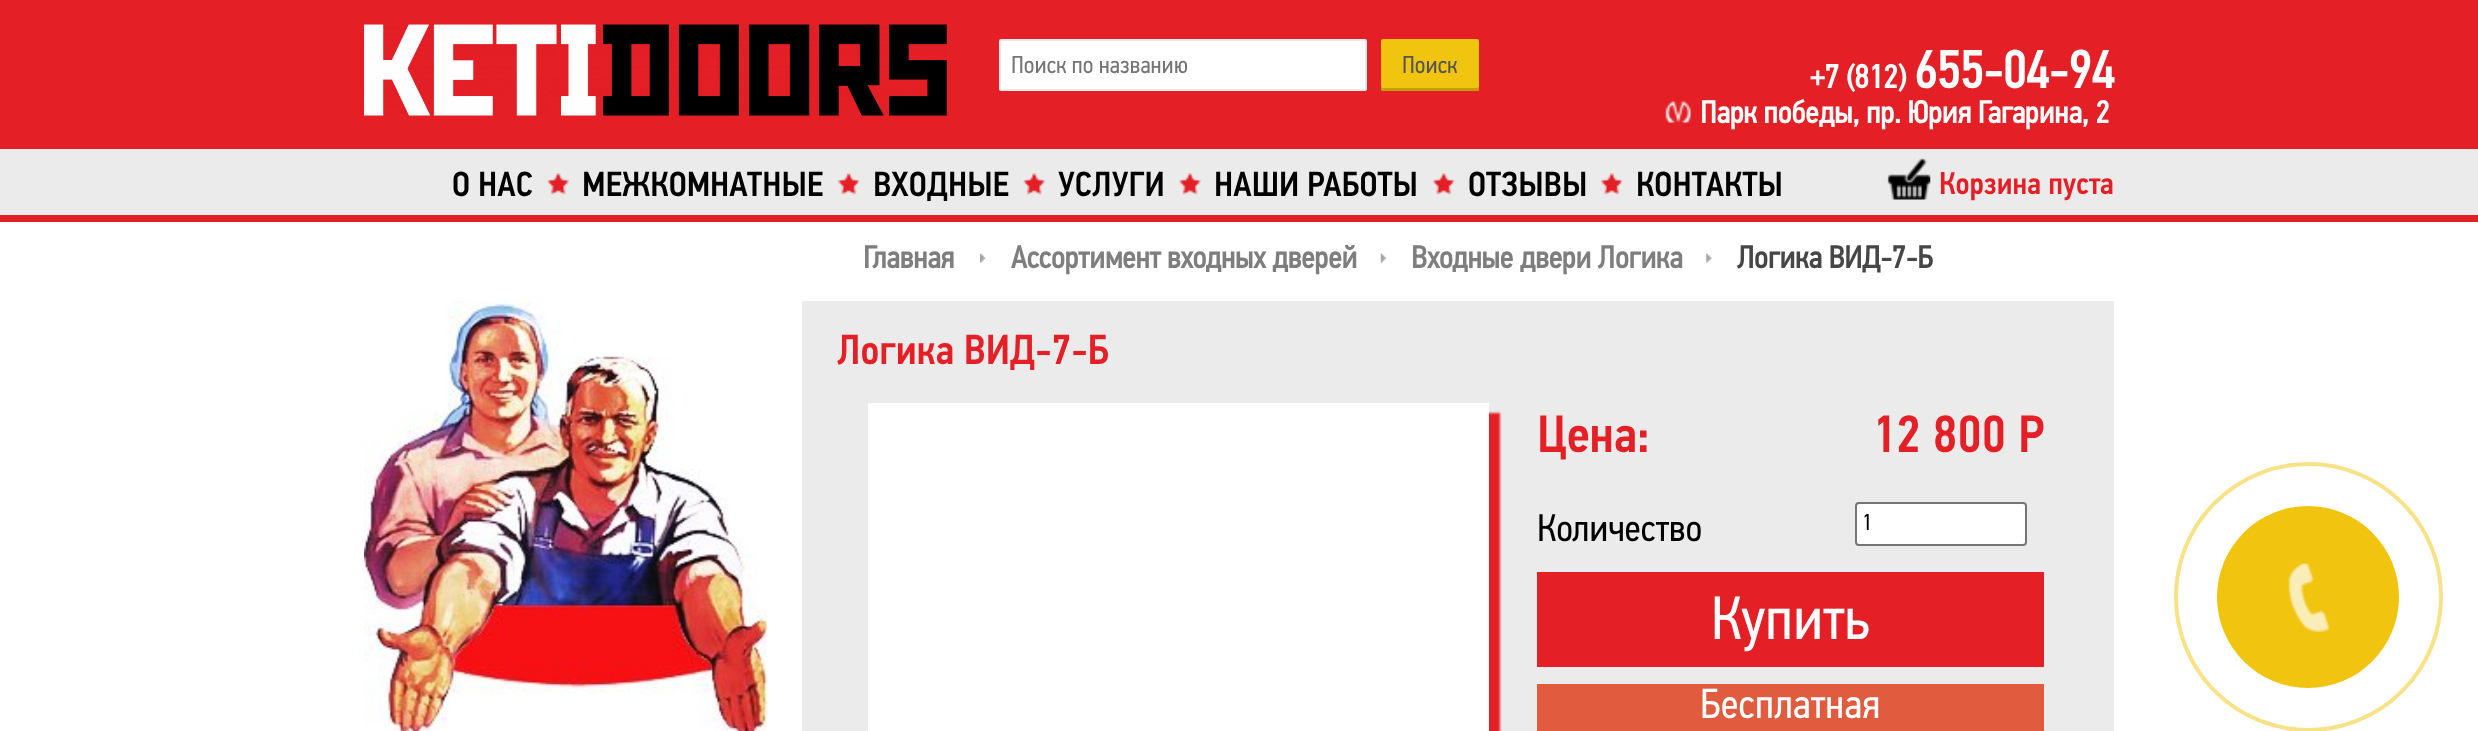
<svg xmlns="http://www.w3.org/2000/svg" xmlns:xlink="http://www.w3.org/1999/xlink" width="2478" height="731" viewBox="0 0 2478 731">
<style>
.cls-1{font:24.5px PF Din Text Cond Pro;fill:#757575}
.cls-2{font:24.5px PF Din Text Cond Pro;fill:#555555}
.cls-3{font:bold 33px PF Din Text Cond Pro;fill:#ffffff}
.cls-4{font:bold 52.5px PF Din Text Cond Pro;fill:#ffffff}
.cls-5{font:bold 31.5px PF Din Text Cond Pro;fill:#ffffff}
.cls-6{font:500 35px PF Din Text Cond Pro;fill:#000000}
.cls-7{font:500 31.5px PF Din Text Cond Pro;fill:#e41f26}
.cls-8{font:bold 31.5px PF Din Text Cond Pro;fill:#7e7e7e}
.cls-9{font:bold 31.5px PF Din Text Cond Pro;fill:#464646}
.cls-10{font:500 42px PF Din Text Cond Pro;fill:#e41f26}
.cls-11{font:500 52.5px PF Din Text Cond Pro;fill:#e41f26}
.cls-12{font:38.5px PF Din Text Cond Pro;fill:#000000}
.cls-13{font:23px PF Din Text Cond Pro;fill:#000000}
.cls-14{font:61px PF Din Text Cond Pro;fill:#ffffff}
.cls-15{font:42px PF Din Text Cond Pro;fill:#ffffff}
</style>
<rect width="100%" height="100%" fill="#ffffff"/>
<rect fill="#e41f26" x="0" y="0" width="2478" height="149"/>
<image xlink:href="image0.png" x="364" y="24" width="583" height="92"/>
<rect fill="#ffffff" stroke="#ebebeb" stroke-width="2" x="1000" y="40" width="366" height="50" rx="1"/>
<rect fill="#f1c40f" x="1381" y="39" width="98" height="52" rx="2"/>
<path fill="#c39d03" d="M1381 86V89C1381 90 1382 91 1383 91H1477C1478 91 1479 90 1479 89V86C1479 87 1478 88 1477 88H1382Z"/>
<image xlink:href="image1.png" x="1665" y="101" width="26" height="22"/>
<rect fill="#ebebeb" x="0" y="149" width="2478" height="66"/>
<rect fill="#e41f26" x="0" y="215" width="2478" height="7"/>
<image xlink:href="image2.png" x="547" y="173" width="22" height="22"/>
<image xlink:href="image3.png" x="838" y="173" width="22" height="22"/>
<image xlink:href="image4.png" x="1023" y="173" width="22" height="22"/>
<image xlink:href="image5.png" x="1179" y="173" width="22" height="22"/>
<image xlink:href="image3.png" x="1433" y="173" width="22" height="22"/>
<image xlink:href="image6.png" x="1601" y="173" width="22" height="22"/>
<image xlink:href="image7.png" x="1887" y="158" width="44" height="42"/>
<image xlink:href="image8.png" x="980" y="253" width="6" height="10"/>
<image xlink:href="image9.png" x="1380" y="253" width="6" height="10"/>
<image xlink:href="image10.png" x="1706" y="253" width="6" height="10"/>
<image xlink:href="image11.png" x="364" y="301" width="403" height="430"/>
<rect fill="#ebebeb" x="802" y="301" width="1312" height="430"/>
<rect fill="#e41f26" filter="blur(1px)" x="879" y="413" width="621" height="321"/>
<rect fill="#ffffff" x="868" y="403" width="621" height="328"/>
<rect fill="#ffffff" stroke="#767676" stroke-width="2" x="1856" y="503" width="170" height="42" rx="3"/>
<rect fill="#e41f26" x="1537" y="572" width="507" height="95"/>
<rect fill="#e15b3e" x="1537" y="684" width="507" height="47"/>
<rect fill="none" stroke="#f8e287" stroke-width="4" x="2176" y="464" width="265" height="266" rx="132.5"/>
<circle fill="#f1c40f" cx="2308" cy="597" r="91"/>
<image xlink:href="image12.png" x="2288" y="562" width="42" height="70"/>
<text class="cls-1" x="1011" y="73">Поиск по названию</text>
<text class="cls-2" x="1402" y="73">Поиск</text>
<text class="cls-3" x="1810" y="88">+7 (812)</text>
<text class="cls-4" x="1914" y="88">655-04-94</text>
<text class="cls-5" x="1700" y="123">Парк победы, пр. Юрия Гагарина, 2</text>
<text class="cls-6" x="452" y="196">О НАС</text>
<text class="cls-6" x="582" y="196">МЕЖКОМНАТНЫЕ</text>
<text class="cls-6" x="873" y="196">ВХОДНЫЕ</text>
<text class="cls-6" x="1058" y="196">УСЛУГИ</text>
<text class="cls-6" x="1214" y="196">НАШИ РАБОТЫ</text>
<text class="cls-6" x="1468" y="196">ОТЗЫВЫ</text>
<text class="cls-6" x="1636" y="196">КОНТАКТЫ</text>
<text class="cls-7" x="1939" y="194">Корзина пуста</text>
<text class="cls-8" x="863" y="268">Главная</text>
<text class="cls-8" x="1011" y="268">Ассортимент входных дверей</text>
<text class="cls-8" x="1411" y="268">Входные двери Логика</text>
<text class="cls-9" x="1737" y="268">Логика ВИД-7-Б</text>
<text class="cls-10" x="837" y="364">Логика ВИД-7-Б</text>
<text class="cls-11" x="1537" y="452">Цена:</text>
<text class="cls-11" x="1872" y="452">12 800 Р</text>
<text class="cls-12" x="1537" y="541">Количество</text>
<text class="cls-13" x="1862" y="530">1</text>
<text class="cls-14" x="1711" y="639">Купить</text>
<text class="cls-15" x="1700" y="718">Бесплатная</text>
</svg>
